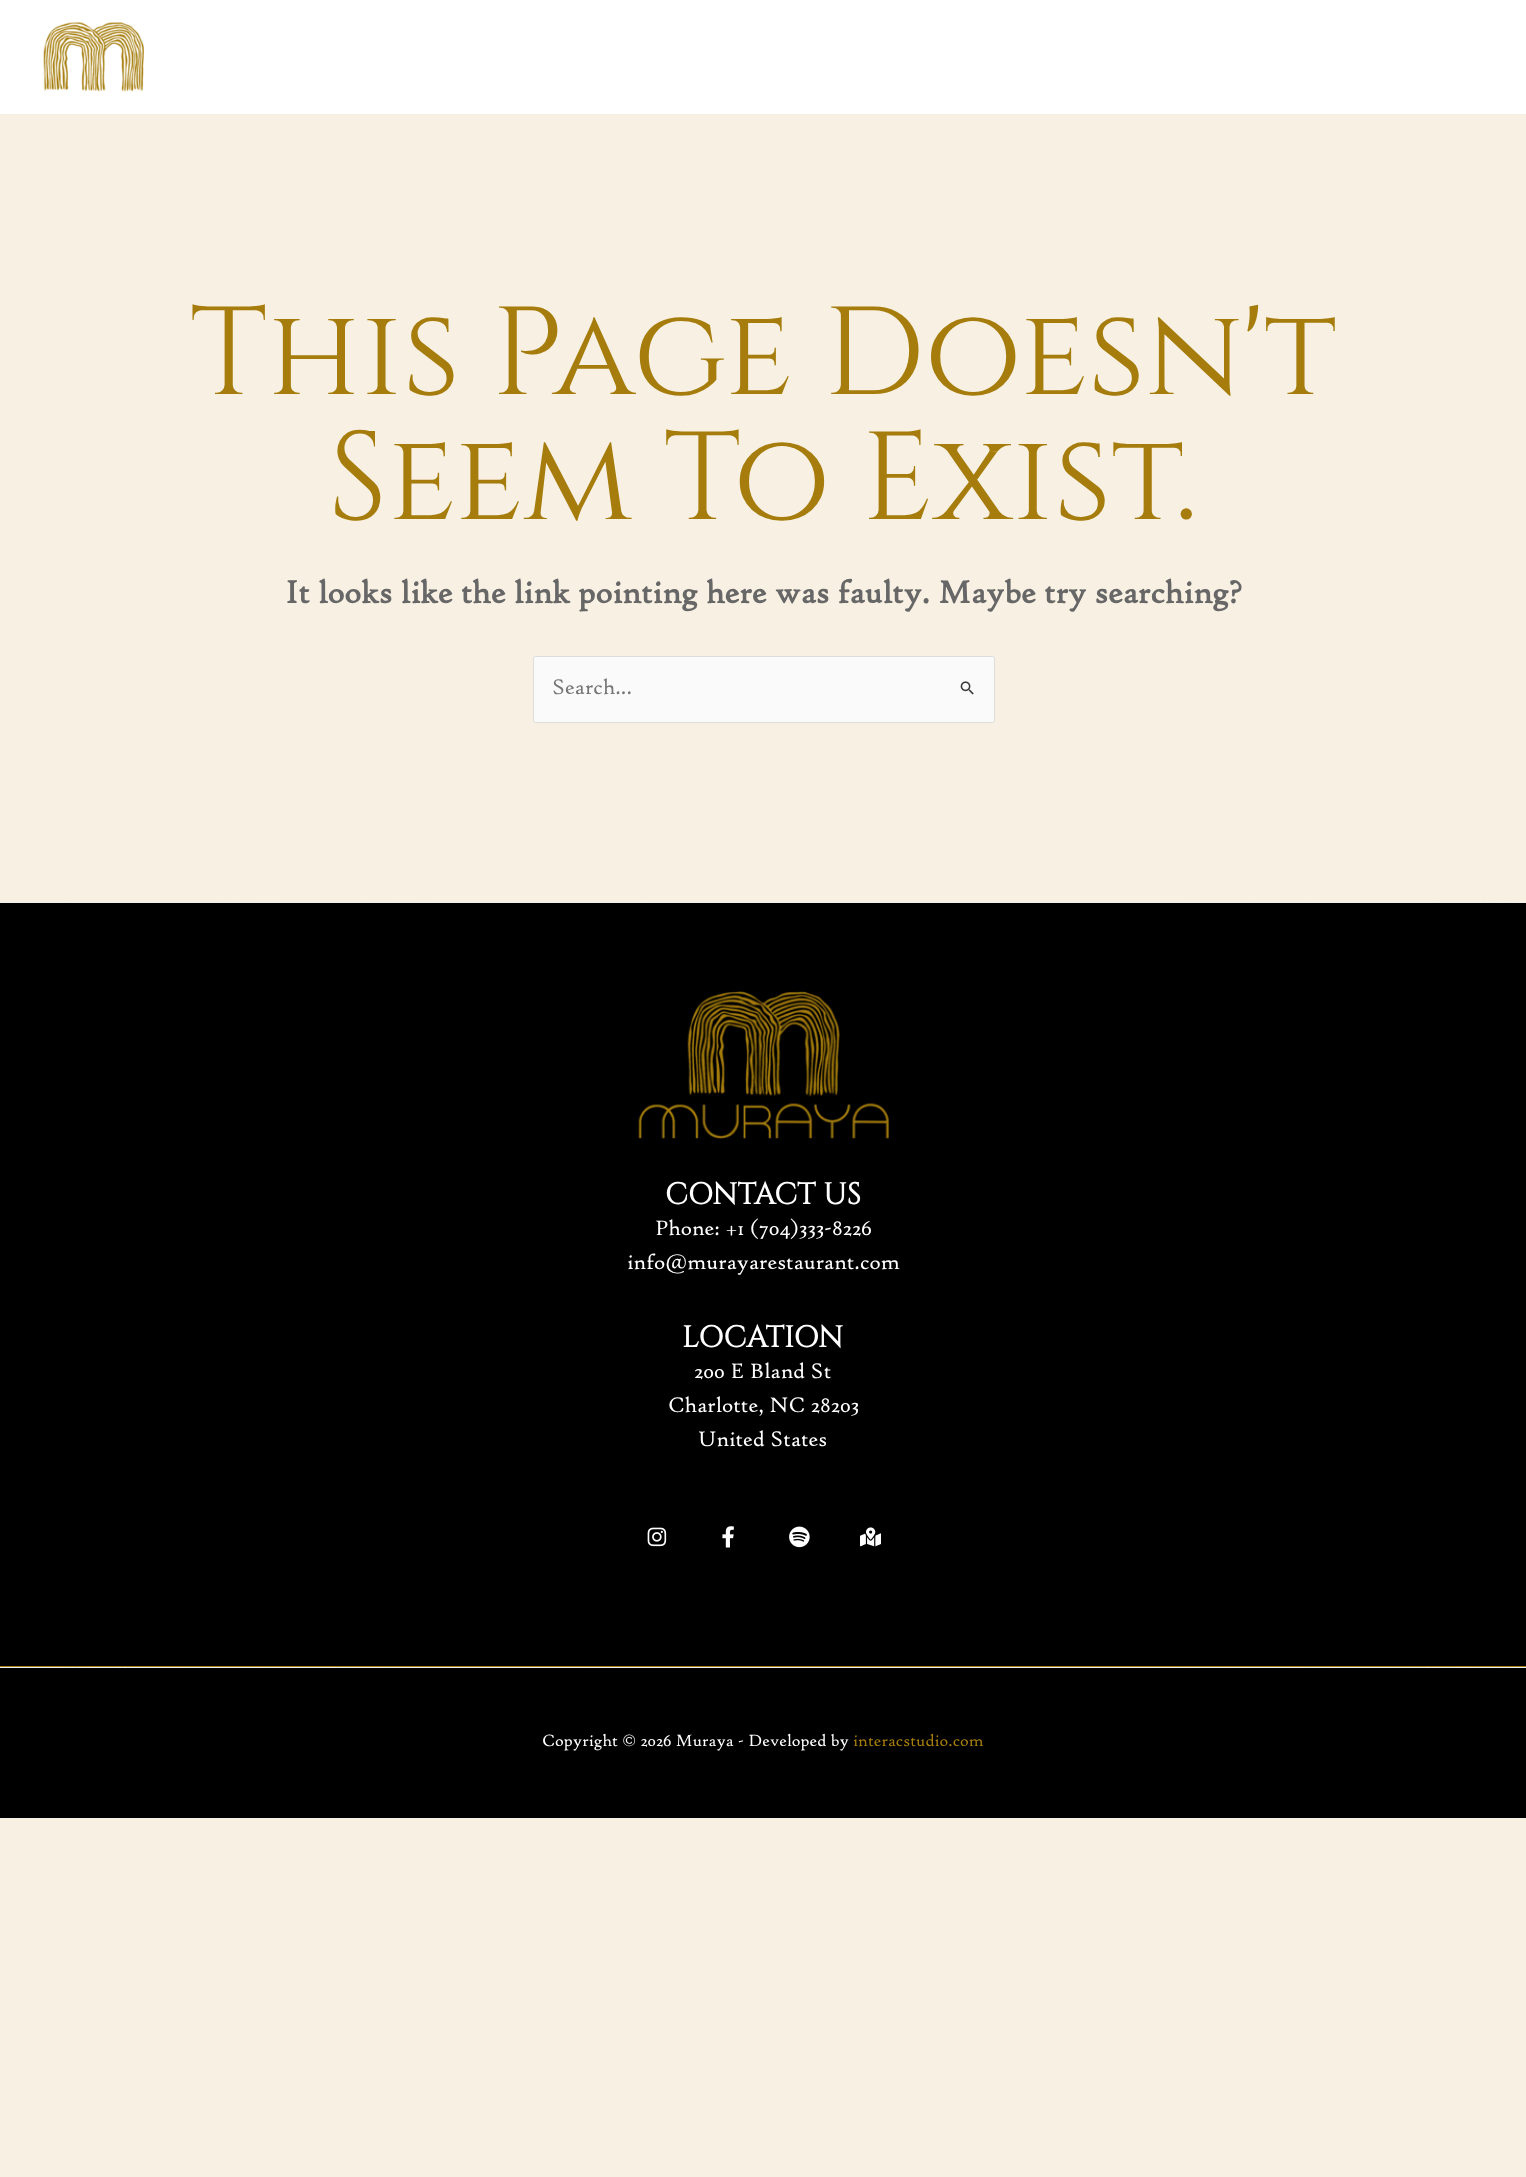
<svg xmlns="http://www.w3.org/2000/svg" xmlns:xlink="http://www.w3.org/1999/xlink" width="1526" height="2177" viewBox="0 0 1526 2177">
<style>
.cls-1{font:125px Cinzel;fill:#a67d0c}
.cls-2{font:bold 33.75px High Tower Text;fill:#676767}
.cls-3{font:22.5px High Tower Text;fill:#757575}
.cls-4{font:bold 30px Cinzel;fill:#ffffff}
.cls-5{font:22.5px High Tower Text;fill:#ffffff}
.cls-6{font:17.5px High Tower Text;fill:#ffffff}
.cls-7{font:17.5px High Tower Text;fill:#a67d0c}
</style>
<rect width="100%" height="100%" fill="#f8f1e3"/>
<rect fill="#ffffff" x="0" y="0" width="1526" height="114"/>
<image xlink:href="image0.png" x="43" y="22" width="101" height="70"/>
<rect fill="#fafafa" stroke="#dddddd" x="533.5" y="656.5" width="461" height="66" rx="2"/>
<image xlink:href="image1.png" x="960" y="681" width="14" height="14"/>
<image xlink:href="image2.png" x="0" y="902" width="1526" height="766"/>
<rect fill="#000000" x="0" y="903" width="1526" height="763"/>
<image xlink:href="image3.png" x="638" y="991" width="252" height="148"/>
<image xlink:href="image4.png" x="647" y="1527" width="20" height="20"/>
<image xlink:href="image5.png" x="722" y="1526" width="12" height="22"/>
<image xlink:href="image6.png" x="789" y="1526" width="21" height="22"/>
<image xlink:href="image7.png" x="860" y="1527" width="21" height="20"/>
<rect fill="#000000" x="0" y="1668" width="1526" height="150"/>
<rect fill="#a67d0c" x="0" y="1666" width="1526" height="1"/>
<text class="cls-1" x="190" y="394">This Page Doesn't</text>
<text class="cls-1" x="328" y="519">Seem To Exist.</text>
<text class="cls-2" x="285" y="603">It looks like the link pointing here was faulty. Maybe try searching?</text>
<text class="cls-3" x="552" y="694">Search...</text>
<text class="cls-4" x="665" y="1204">CONTACT US</text>
<text class="cls-5" x="655" y="1235">Phone: +1 (704)333-8226</text>
<text class="cls-5" x="627" y="1269">info@murayarestaurant.com</text>
<text class="cls-4" x="682" y="1347">LOCATION</text>
<text class="cls-5" x="694" y="1378">200 E Bland St</text>
<text class="cls-5" x="668" y="1412">Charlotte, NC 28203</text>
<text class="cls-5" x="698" y="1446">United States</text>
<text class="cls-6" x="542" y="1746">Copyright © 2026 Muraya - Developed by</text>
<text class="cls-7" x="853" y="1746">interacstudio.com</text>
</svg>
